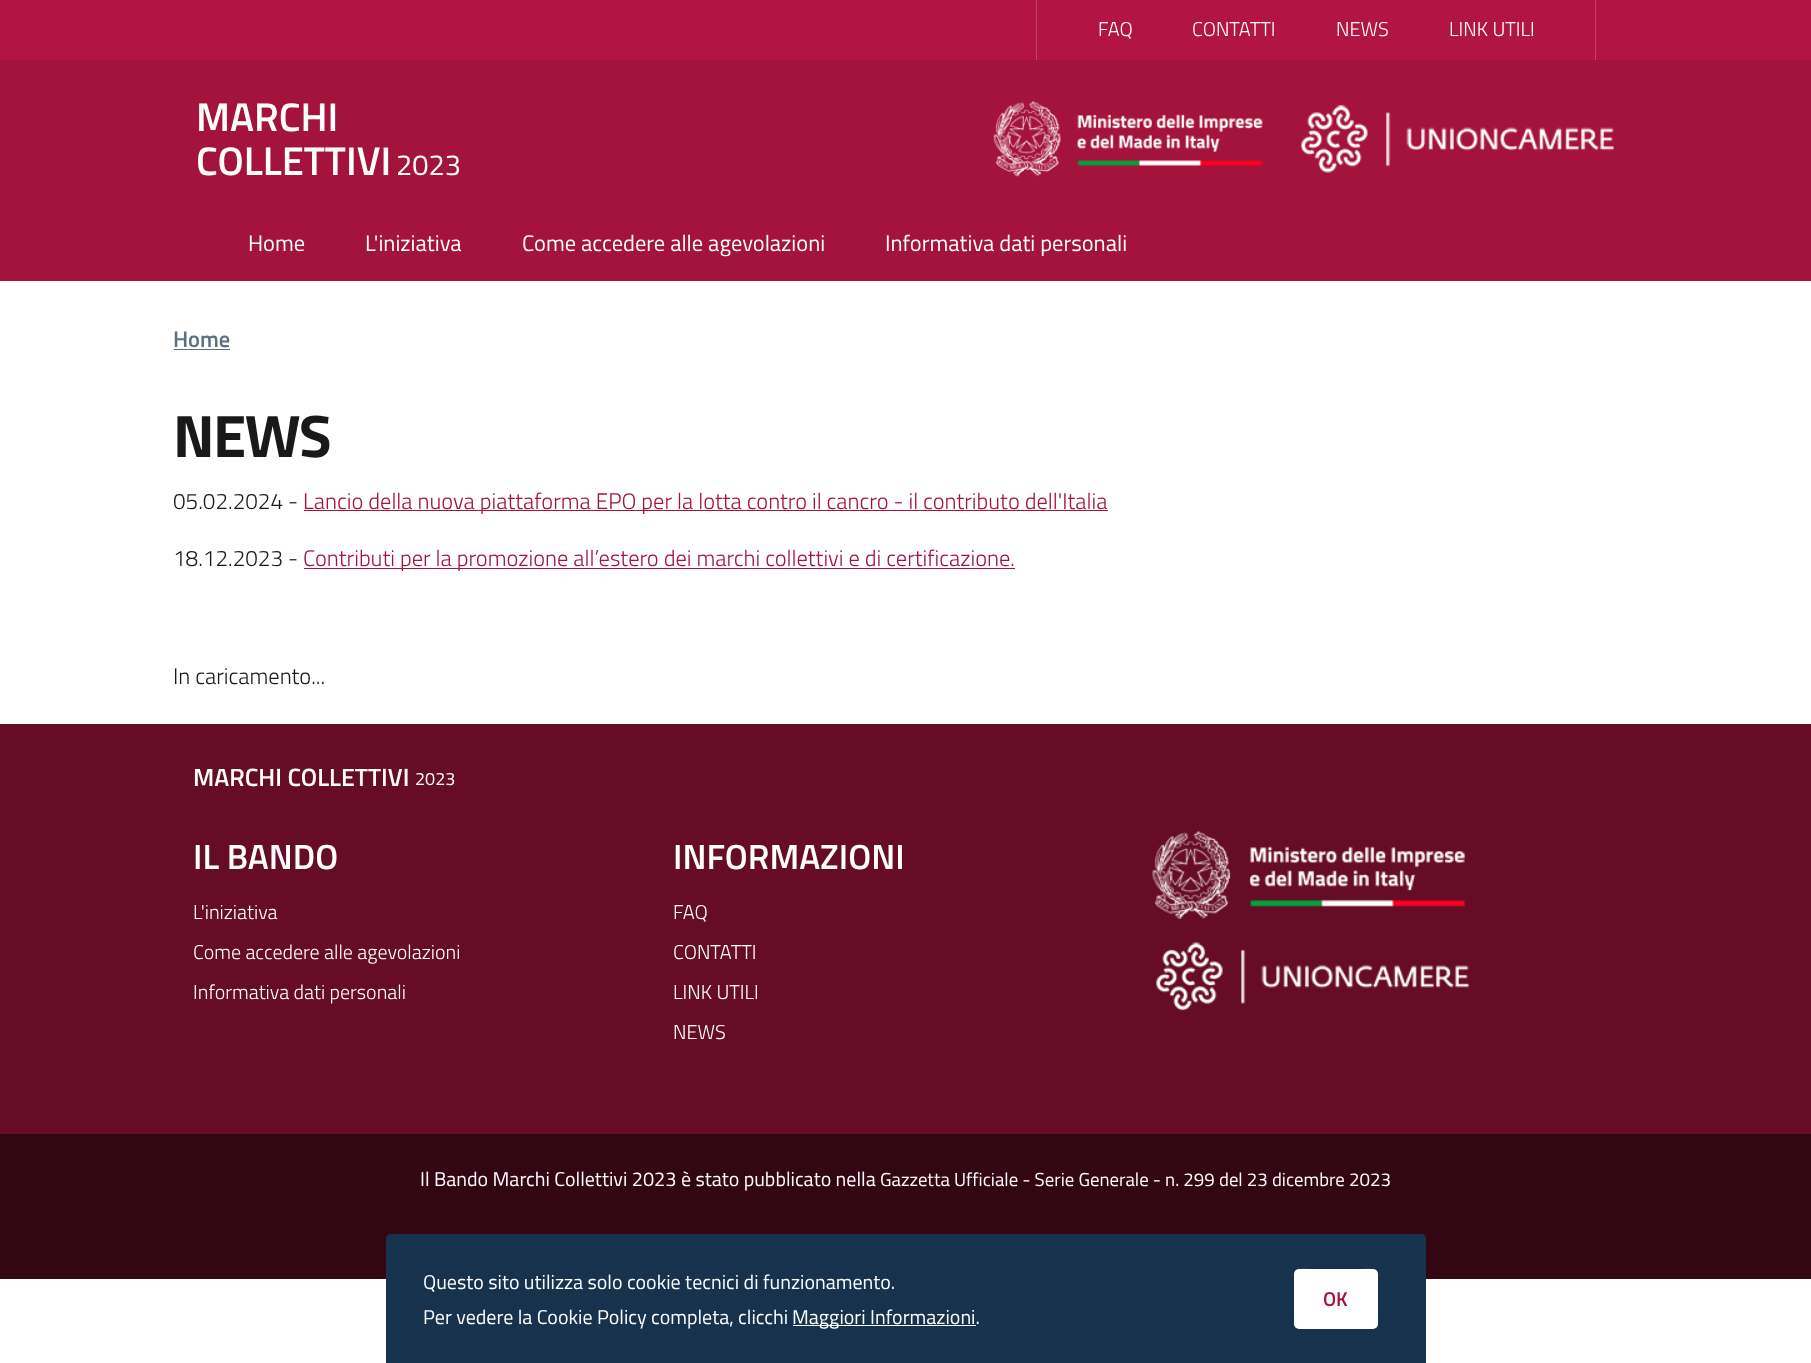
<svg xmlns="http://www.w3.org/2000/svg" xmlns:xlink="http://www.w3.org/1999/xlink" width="1811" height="1363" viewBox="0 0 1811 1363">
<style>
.cls-1{font:300 20px Titillium Web;fill:#ffffff}
.cls-2{font:600 40px Titillium Web;fill:#ffffff}
.cls-3{font:29px Titillium Web;fill:#ffffff}
.cls-4{font:22.5px Titillium Web;fill:#ffffff}
.cls-5{font:600 22.5px Titillium Web;fill:#5b6f82}
.cls-6{font:bold 60px Titillium Web;letter-spacing:-1.5px;fill:#19191a}
.cls-7{font:300 22.5px Titillium Web;fill:#19191a}
.cls-8{font:300 22.5px Titillium Web;fill:#a3143c}
.cls-9{font:600 25px Titillium Web;fill:#ffffff}
.cls-10{font:18px Titillium Web;fill:#ffffff}
.cls-11{font:600 35px Titillium Web;fill:#ffffff}
.cls-12{font:20px Titillium Web;fill:#ffffff}
.cls-13{font:18.75px Titillium Web;fill:#ffffff}
.cls-14{font:600 20px Titillium Web;fill:#a3143c}
</style>
<rect width="100%" height="100%" fill="#ffffff"/>
<rect fill="#b31542" x="0" y="0" width="1811" height="60"/>
<rect fill="#c24468" x="1595" y="0" width="1" height="60"/>
<rect fill="#c24468" x="1036" y="0" width="1" height="60"/>
<rect fill="#a4133c" x="0" y="60" width="1811" height="221"/>
<image xlink:href="image0.png" x="993" y="101" width="270" height="76"/>
<image xlink:href="image1.png" x="1301" y="104" width="313" height="69"/>
<rect fill="#5b6f82" x="174" y="349" width="56" height="1"/>
<rect fill="#a3143c" x="304" y="510" width="804" height="1"/>
<rect fill="#a3143c" x="304" y="568" width="711" height="1"/>
<rect fill="#660c26" x="0" y="724" width="1811" height="410"/>
<image xlink:href="image2.png" x="1152" y="831" width="313" height="88"/>
<image xlink:href="image3.png" x="1156" y="942" width="313" height="69"/>
<rect fill="#330613" x="0" y="1134" width="1811" height="145"/>
<path fill="#17324d" d="M391 1234H1421C1424 1234 1426 1236 1426 1239V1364H386V1239C386 1236 388 1234 391 1234Z"/>
<rect fill="#ffffff" x="793" y="1325" width="183" height="1"/>
<rect fill="#ffffff" x="1294" y="1269" width="84" height="60" rx="5"/>
<path fill="#ffffff" fill-opacity="0.15" d="M1299 1270H1372C1375 1270 1378 1272 1378 1275C1378 1266 1366 1269 1361 1269H1311C1306 1269 1294 1266 1294 1275C1294 1272 1296 1270 1299 1270Z"/>
<text class="cls-1" x="1098" y="36">FAQ</text>
<text class="cls-1" x="1192" y="36">CONTATTI</text>
<text class="cls-1" x="1336" y="36">NEWS</text>
<text class="cls-1" x="1449" y="36">LINK UTILI</text>
<text class="cls-2"><tspan x="196" y="131">MARCHI</tspan><tspan x="196" y="175">COLLETTIVI</tspan></text>
<text class="cls-3" x="396" y="175">2023</text>
<text class="cls-4" x="248" y="251">Home</text>
<text class="cls-4" x="365" y="251">L'iniziativa</text>
<text class="cls-4" x="522" y="251">Come accedere alle agevolazioni</text>
<text class="cls-4" x="885" y="251">Informativa dati personali</text>
<text class="cls-5" x="173" y="347">Home</text>
<text class="cls-6" x="173" y="457">NEWS</text>
<text class="cls-7" x="173" y="509">05.02.2024 -</text>
<text class="cls-8" x="303" y="509">Lancio della nuova piattaforma EPO per la lotta contro il cancro - il contributo dell'Italia</text>
<text class="cls-7" x="173" y="566">18.12.2023 -</text>
<text class="cls-8" x="303" y="566">Contributi per la promozione all’estero dei marchi collettivi e di certificazione.</text>
<text class="cls-7" x="173" y="684">In caricamento...</text>
<text class="cls-9" x="193" y="786">MARCHI COLLETTIVI</text>
<text class="cls-10" x="415" y="785">2023</text>
<text class="cls-11" x="193" y="869">IL BANDO</text>
<text class="cls-1" x="193" y="919">L'iniziativa</text>
<text class="cls-1" x="193" y="959">Come accedere alle agevolazioni</text>
<text class="cls-1" x="193" y="999">Informativa dati personali</text>
<text class="cls-11" x="673" y="869">INFORMAZIONI</text>
<text class="cls-1" x="673" y="919">FAQ</text>
<text class="cls-1" x="673" y="959">CONTATTI</text>
<text class="cls-1" x="673" y="999">LINK UTILI</text>
<text class="cls-1" x="673" y="1039">NEWS</text>
<text class="cls-12" x="420" y="1186">Il Bando Marchi Collettivi 2023 è stato pubblicato nella</text>
<text class="cls-13" x="880" y="1186">Gazzetta Ufficiale - Serie Generale - n. 299 del 23 dicembre 2023</text>
<text class="cls-12"><tspan x="423" y="1289">Questo sito utilizza solo cookie tecnici di funzionamento.</tspan><tspan x="423" y="1324">Per vedere la Cookie Policy completa, clicchi</tspan></text>
<text class="cls-12" x="792" y="1324">Maggiori Informazioni.</text>
<text class="cls-14" x="1323" y="1306">OK</text>
</svg>
